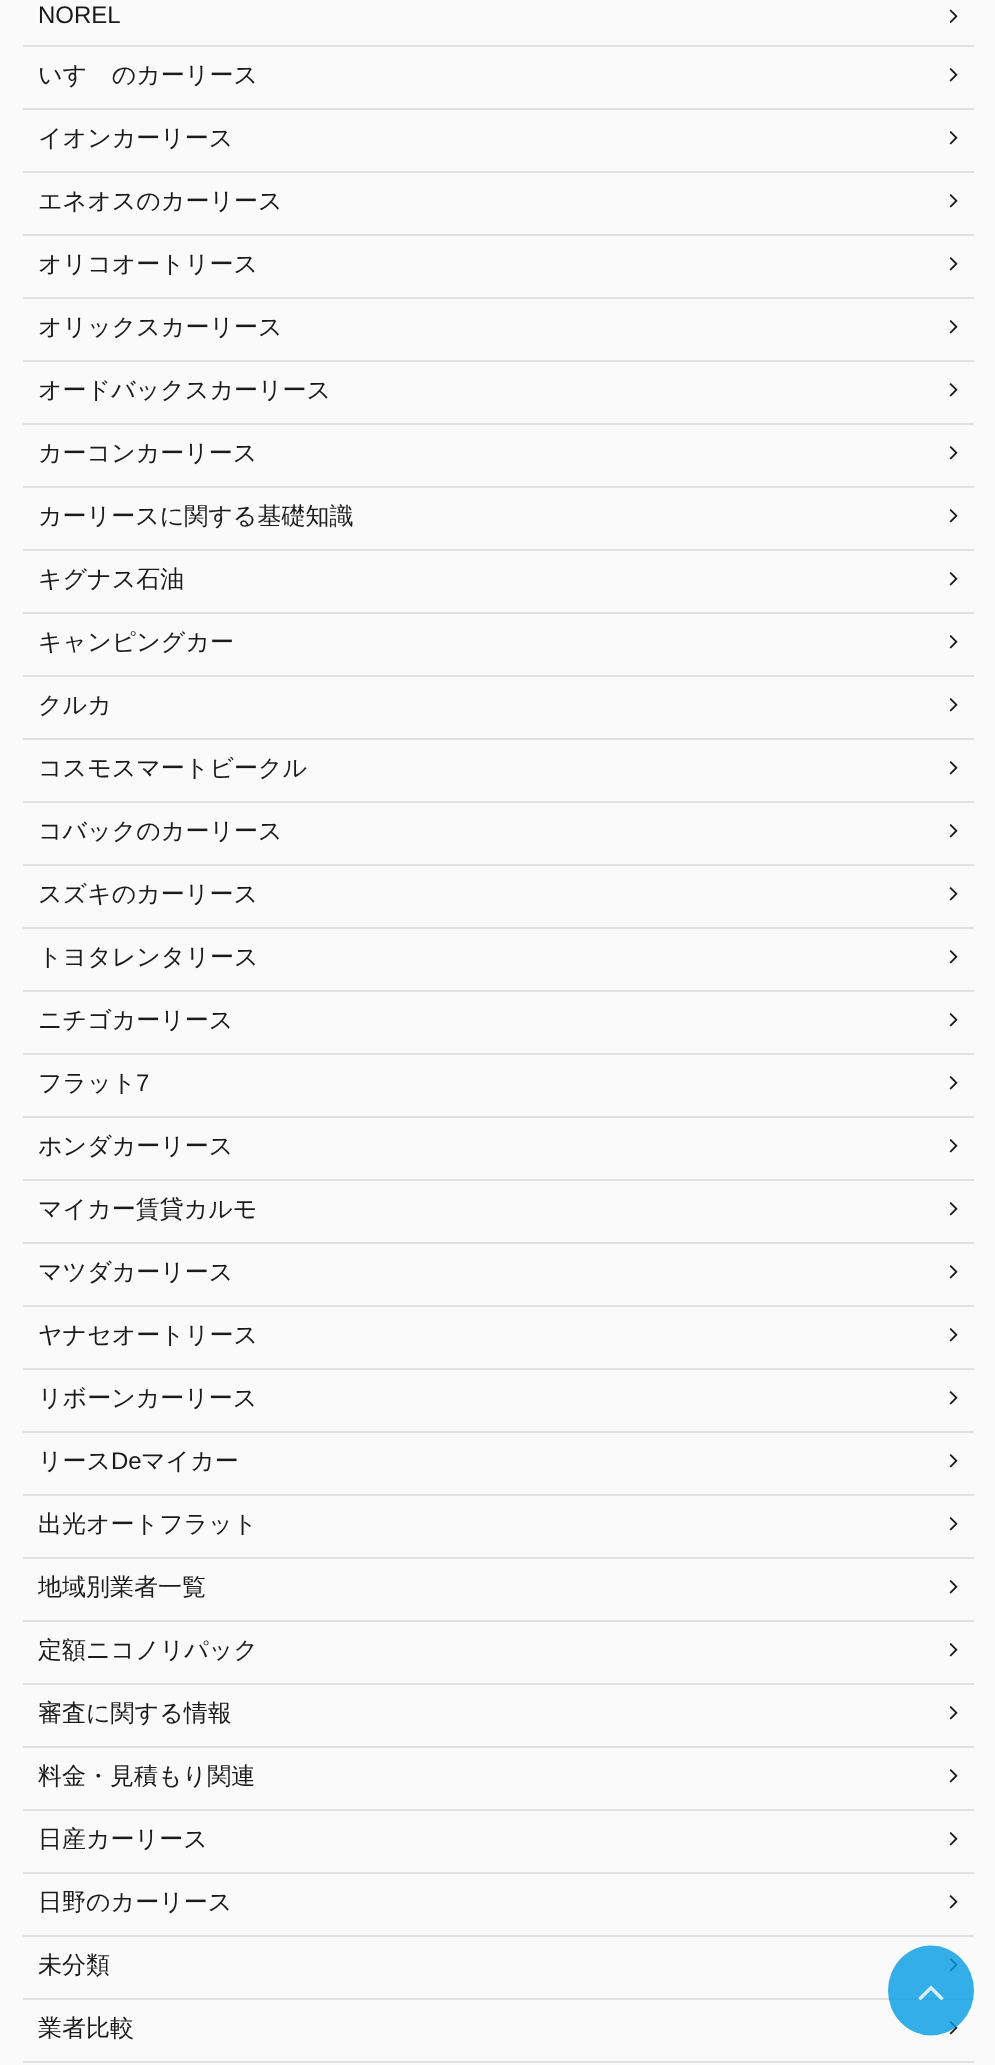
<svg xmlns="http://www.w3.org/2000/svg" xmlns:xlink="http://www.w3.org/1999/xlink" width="995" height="2065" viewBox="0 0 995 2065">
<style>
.cls-1{font:24px Liberation Sans;fill:#1a1a1a}
.cls-2{font:500 24px WenQuanYi Zen Hei;fill:#1a1a1a}
</style>
<rect width="100%" height="100%" fill="#fafafa"/>
<rect fill="#e1e1e1" x="23" y="45" width="951" height="2"/>
<image xlink:href="image0.png" x="949" y="9" width="9" height="14"/>
<rect fill="#e1e1e1" x="23" y="108" width="951" height="2"/>
<image xlink:href="image1.png" x="949" y="68" width="9" height="14"/>
<rect fill="#e1e1e1" x="23" y="171" width="951" height="2"/>
<image xlink:href="image1.png" x="949" y="131" width="9" height="14"/>
<rect fill="#e1e1e1" x="23" y="234" width="951" height="2"/>
<image xlink:href="image1.png" x="949" y="194" width="9" height="14"/>
<rect fill="#e1e1e1" x="23" y="297" width="951" height="2"/>
<image xlink:href="image1.png" x="949" y="257" width="9" height="14"/>
<rect fill="#e1e1e1" x="23" y="360" width="951" height="2"/>
<image xlink:href="image1.png" x="949" y="320" width="9" height="14"/>
<rect fill="#e1e1e1" x="23" y="423" width="951" height="2"/>
<image xlink:href="image1.png" x="949" y="383" width="9" height="14"/>
<rect fill="#e1e1e1" x="23" y="486" width="951" height="2"/>
<image xlink:href="image1.png" x="949" y="446" width="9" height="14"/>
<rect fill="#e1e1e1" x="23" y="549" width="951" height="2"/>
<image xlink:href="image1.png" x="949" y="509" width="9" height="14"/>
<rect fill="#e1e1e1" x="23" y="612" width="951" height="2"/>
<image xlink:href="image1.png" x="949" y="572" width="9" height="14"/>
<rect fill="#e1e1e1" x="23" y="675" width="951" height="2"/>
<image xlink:href="image1.png" x="949" y="635" width="9" height="14"/>
<rect fill="#e1e1e1" x="23" y="738" width="951" height="2"/>
<image xlink:href="image1.png" x="949" y="698" width="9" height="14"/>
<rect fill="#e1e1e1" x="23" y="801" width="951" height="2"/>
<image xlink:href="image1.png" x="949" y="761" width="9" height="14"/>
<rect fill="#e1e1e1" x="23" y="864" width="951" height="2"/>
<image xlink:href="image1.png" x="949" y="824" width="9" height="14"/>
<rect fill="#e1e1e1" x="23" y="927" width="951" height="2"/>
<image xlink:href="image1.png" x="949" y="887" width="9" height="14"/>
<rect fill="#e1e1e1" x="23" y="990" width="951" height="2"/>
<image xlink:href="image1.png" x="949" y="950" width="9" height="14"/>
<rect fill="#e1e1e1" x="23" y="1053" width="951" height="2"/>
<image xlink:href="image1.png" x="949" y="1013" width="9" height="14"/>
<rect fill="#e1e1e1" x="23" y="1116" width="951" height="2"/>
<image xlink:href="image1.png" x="949" y="1076" width="9" height="14"/>
<rect fill="#e1e1e1" x="23" y="1179" width="951" height="2"/>
<image xlink:href="image1.png" x="949" y="1139" width="9" height="14"/>
<rect fill="#e1e1e1" x="23" y="1242" width="951" height="2"/>
<image xlink:href="image1.png" x="949" y="1202" width="9" height="14"/>
<rect fill="#e1e1e1" x="23" y="1305" width="951" height="2"/>
<image xlink:href="image1.png" x="949" y="1265" width="9" height="14"/>
<rect fill="#e1e1e1" x="23" y="1368" width="951" height="2"/>
<image xlink:href="image1.png" x="949" y="1328" width="9" height="14"/>
<rect fill="#e1e1e1" x="23" y="1431" width="951" height="2"/>
<image xlink:href="image1.png" x="949" y="1391" width="9" height="14"/>
<rect fill="#e1e1e1" x="23" y="1494" width="951" height="2"/>
<image xlink:href="image1.png" x="949" y="1454" width="9" height="14"/>
<rect fill="#e1e1e1" x="23" y="1557" width="951" height="2"/>
<image xlink:href="image1.png" x="949" y="1517" width="9" height="14"/>
<rect fill="#e1e1e1" x="23" y="1620" width="951" height="2"/>
<image xlink:href="image1.png" x="949" y="1580" width="9" height="14"/>
<rect fill="#e1e1e1" x="23" y="1683" width="951" height="2"/>
<image xlink:href="image1.png" x="949" y="1643" width="9" height="14"/>
<rect fill="#e1e1e1" x="23" y="1746" width="951" height="2"/>
<image xlink:href="image1.png" x="949" y="1706" width="9" height="14"/>
<rect fill="#e1e1e1" x="23" y="1809" width="951" height="2"/>
<image xlink:href="image1.png" x="949" y="1769" width="9" height="14"/>
<rect fill="#e1e1e1" x="23" y="1872" width="951" height="2"/>
<image xlink:href="image1.png" x="949" y="1832" width="9" height="14"/>
<rect fill="#e1e1e1" x="23" y="1935" width="951" height="2"/>
<image xlink:href="image1.png" x="949" y="1895" width="9" height="14"/>
<rect fill="#e1e1e1" x="23" y="1998" width="951" height="2"/>
<image xlink:href="image1.png" x="949" y="1958" width="9" height="14"/>
<rect fill="#e1e1e1" x="23" y="2061" width="951" height="2"/>
<image xlink:href="image1.png" x="949" y="2021" width="9" height="14"/>
<ellipse fill="#039be5" fill-opacity="0.8" cx="931" cy="1990.5" rx="43" ry="45"/>
<image xlink:href="image2.png" x="918" y="1985" width="26" height="16"/>
<text class="cls-1" x="38" y="23">NOREL</text>
<text class="cls-2" x="38" y="83">いすゞのカーリース</text>
<text class="cls-2" x="38" y="146">イオンカーリース</text>
<text class="cls-2" x="38" y="209">エネオスのカーリース</text>
<text class="cls-2" x="38" y="272">オリコオートリース</text>
<text class="cls-2" x="38" y="335">オリックスカーリース</text>
<text class="cls-2" x="38" y="398">オードバックスカーリース</text>
<text class="cls-2" x="38" y="461">カーコンカーリース</text>
<text class="cls-2" x="38" y="524">カーリースに関する基礎知識</text>
<text class="cls-2" x="38" y="587">キグナス石油</text>
<text class="cls-2" x="38" y="650">キャンピングカー</text>
<text class="cls-2" x="38" y="713">クルカ</text>
<text class="cls-2" x="38" y="776">コスモスマートビークル</text>
<text class="cls-2" x="38" y="839">コバックのカーリース</text>
<text class="cls-2" x="38" y="902">スズキのカーリース</text>
<text class="cls-2" x="38" y="965">トヨタレンタリース</text>
<text class="cls-2" x="38" y="1028">ニチゴカーリース</text>
<text class="cls-2" x="38" y="1091">フラット</text>
<text class="cls-1" x="136" y="1091">7</text>
<text class="cls-2" x="38" y="1154">ホンダカーリース</text>
<text class="cls-2" x="38" y="1217">マイカー賃貸カルモ</text>
<text class="cls-2" x="38" y="1280">マツダカーリース</text>
<text class="cls-2" x="38" y="1343">ヤナセオートリース</text>
<text class="cls-2" x="38" y="1406">リボーンカーリース</text>
<text class="cls-2" x="38" y="1469">リース</text>
<text class="cls-1" x="111" y="1469">De</text>
<text class="cls-2" x="141" y="1469">マイカー</text>
<text class="cls-2" x="38" y="1532">出光オートフラット</text>
<text class="cls-2" x="38" y="1595">地域別業者一覧</text>
<text class="cls-2" x="38" y="1658">定額ニコノリパック</text>
<text class="cls-2" x="38" y="1721">審査に関する情報</text>
<text class="cls-2" x="38" y="1784">料金・見積もり関連</text>
<text class="cls-2" x="38" y="1847">日産カーリース</text>
<text class="cls-2" x="38" y="1910">日野のカーリース</text>
<text class="cls-2" x="38" y="1973">未分類</text>
<text class="cls-2" x="38" y="2036">業者比較</text>
</svg>
